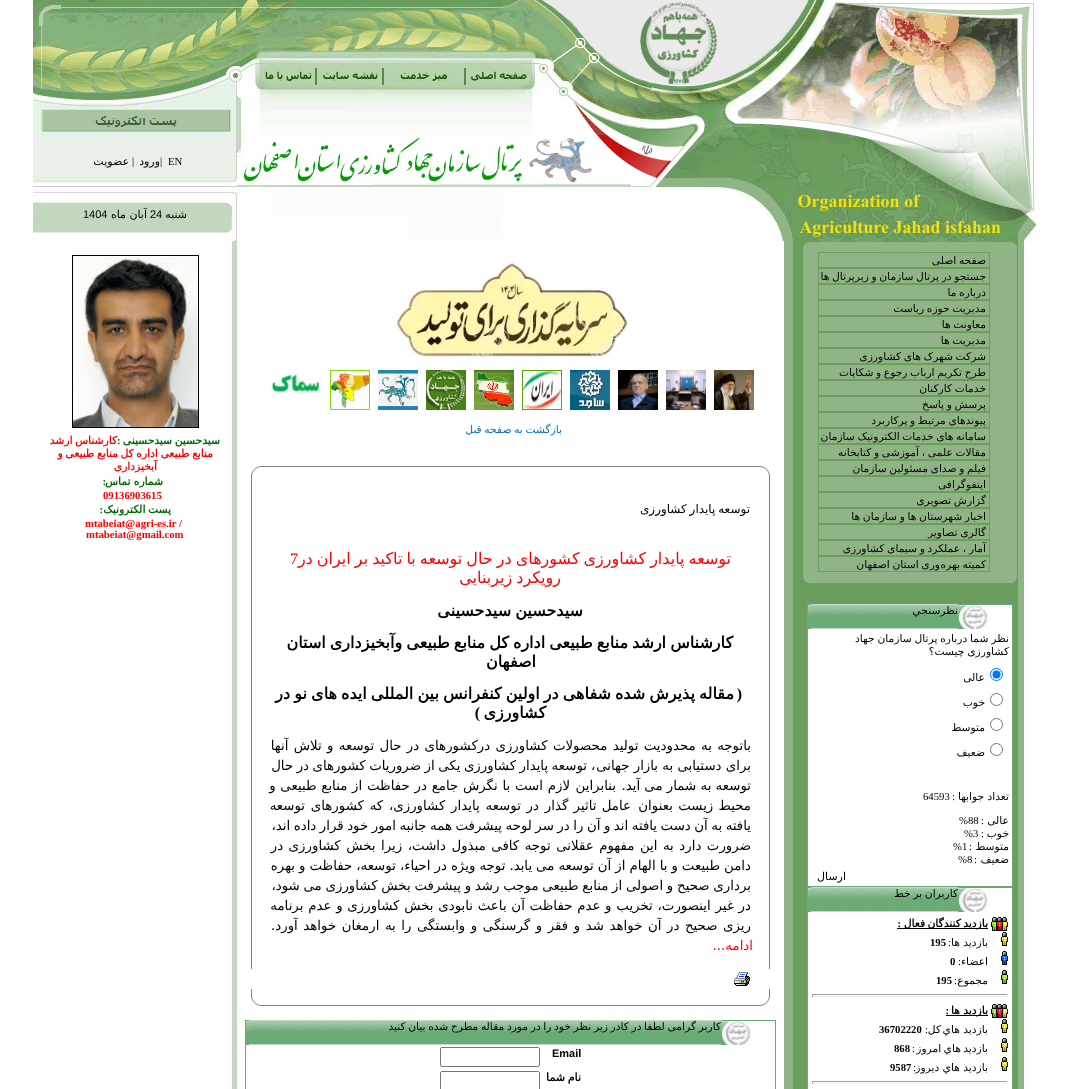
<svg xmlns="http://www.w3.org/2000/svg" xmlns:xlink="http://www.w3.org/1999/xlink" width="1069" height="1089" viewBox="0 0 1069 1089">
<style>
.cls-1{font:10.7px Liberation Serif;fill:#000000}
.cls-2{font:11px DejaVu Sans;direction:rtl;fill:#000000}
.cls-3{font:11px Liberation Sans;fill:#000000}
.cls-4{font:10.7px DejaVu Sans;direction:rtl;fill:#000000}
.cls-5{font:10.7px Liberation Serif;direction:rtl;fill:#000000}
.cls-6{font:bold 10.7px DejaVu Sans;direction:rtl;fill:#000000}
.cls-7{font:bold 10.7px Liberation Serif;direction:rtl;fill:#000000}
.cls-8{font:bold 10.7px Liberation Serif;fill:#000000}
.cls-9{font:10.7px DejaVu Sans;direction:rtl;fill:#0f71b9}
.cls-10{font:12px DejaVu Sans;direction:rtl;fill:#000000}
.cls-11{font:16px Liberation Serif;fill:#ff0000}
.cls-12{font:16px DejaVu Sans;direction:rtl;fill:#ff0000}
.cls-13{font:bold 16px DejaVu Sans;direction:rtl;fill:#000000}
.cls-14{font:bold 16px Liberation Serif;direction:rtl;fill:#000000}
.cls-15{font:13.35px DejaVu Sans;direction:rtl;fill:#000000}
.cls-16{font:13.35px DejaVu Sans;fill:#000000}
.cls-17{font:13.35px DejaVu Sans;direction:rtl;fill:#ff0000}
.cls-18{font:bold 11px Liberation Sans;fill:#000000}
.cls-19{font:bold 11px DejaVu Sans;direction:rtl;fill:#000000}
.cls-20{font:bold 10.7px DejaVu Sans;direction:rtl;fill:#006400}
.cls-21{font:bold 10.7px Liberation Serif;fill:#006400}
.cls-22{font:bold 10.7px DejaVu Sans;direction:rtl;fill:#ff0000}
.cls-23{font:bold 10.7px Liberation Serif;direction:rtl;fill:#006400}
.cls-24{font:bold 10.7px Liberation Serif;fill:#ff0000}
</style>
<rect width="100%" height="100%" fill="#ffffff"/>
<image xlink:href="image0.png" x="33" y="0" width="1003" height="135"/>
<image xlink:href="image1.png" x="784" y="135" width="250" height="52"/>
<image xlink:href="image2.png" x="597" y="135" width="187" height="52"/>
<image xlink:href="image3.png" x="237" y="135" width="360" height="52"/>
<image xlink:href="image4.png" x="33" y="135" width="204" height="52"/>
<image xlink:href="image5.png" x="784" y="187" width="252" height="54"/>
<image xlink:href="image6.png" x="237" y="187" width="547" height="54"/>
<image xlink:href="image7.png" x="33" y="187" width="204" height="54"/>
<image xlink:href="image8.png" x="784" y="241" width="241" height="848"/>
<image xlink:href="image9.png" x="802" y="241" width="216" height="11"/>
<image xlink:href="image10.png" x="803" y="252" width="215" height="321"/>
<rect fill="none" stroke="#6b9d5e" x="818.5" y="252.5" width="171" height="15"/>
<rect fill="none" stroke="#6b9d5e" x="818.5" y="268.5" width="171" height="15"/>
<rect fill="none" stroke="#6b9d5e" x="818.5" y="284.5" width="171" height="15"/>
<rect fill="none" stroke="#6b9d5e" x="818.5" y="300.5" width="171" height="15"/>
<rect fill="none" stroke="#6b9d5e" x="818.5" y="316.5" width="171" height="15"/>
<rect fill="none" stroke="#6b9d5e" x="818.5" y="332.5" width="171" height="15"/>
<rect fill="none" stroke="#6b9d5e" x="818.5" y="348.5" width="171" height="15"/>
<rect fill="none" stroke="#6b9d5e" x="818.5" y="364.5" width="171" height="15"/>
<rect fill="none" stroke="#6b9d5e" x="818.5" y="380.5" width="171" height="15"/>
<rect fill="none" stroke="#6b9d5e" x="818.5" y="396.5" width="171" height="15"/>
<rect fill="none" stroke="#6b9d5e" x="818.5" y="412.5" width="171" height="15"/>
<rect fill="none" stroke="#6b9d5e" x="818.5" y="428.5" width="171" height="15"/>
<rect fill="none" stroke="#6b9d5e" x="818.5" y="444.5" width="171" height="15"/>
<rect fill="none" stroke="#6b9d5e" x="818.5" y="460.5" width="171" height="15"/>
<rect fill="none" stroke="#6b9d5e" x="818.5" y="476.5" width="171" height="15"/>
<rect fill="none" stroke="#6b9d5e" x="818.5" y="492.5" width="171" height="15"/>
<rect fill="none" stroke="#6b9d5e" x="818.5" y="508.5" width="171" height="15"/>
<rect fill="none" stroke="#6b9d5e" x="818.5" y="524.5" width="171" height="15"/>
<rect fill="none" stroke="#6b9d5e" x="818.5" y="540.5" width="171" height="15"/>
<rect fill="none" stroke="#6b9d5e" x="818.5" y="556.5" width="171" height="15"/>
<image xlink:href="image11.png" x="803" y="573" width="215" height="10"/>
<rect fill="#6aab75" x="958" y="604" width="55" height="1"/>
<rect fill="#6aab75" x="1012" y="604" width="1" height="283"/>
<image xlink:href="image12.png" x="958" y="605" width="54" height="24"/>
<image xlink:href="image13.png" x="811" y="604" width="147" height="25"/>
<image xlink:href="image14.png" x="808" y="604" width="3" height="25"/>
<rect fill="#6aab75" x="807" y="604" width="1" height="25"/>
<rect fill="#ffffff" x="808" y="629" width="204" height="257"/>
<rect fill="#6aab75" x="807" y="886" width="206" height="1"/>
<rect fill="#6aab75" x="807" y="629" width="1" height="460"/>
<circle fill="none" stroke="#0075ff" cx="996.5" cy="674.5" r="6"/>
<circle fill="#0075ff" cx="996.5" cy="674.5" r="4"/>
<circle fill="none" stroke="#767676" cx="996.5" cy="699.5" r="6"/>
<circle fill="none" stroke="#767676" cx="996.5" cy="724.5" r="6"/>
<circle fill="none" stroke="#767676" cx="996.5" cy="749.5" r="6"/>
<rect fill="#6aab75" x="958" y="887" width="55" height="1"/>
<rect fill="#6aab75" x="1012" y="887" width="1" height="202"/>
<image xlink:href="image13.png" x="811" y="887" width="147" height="25"/>
<image xlink:href="image14.png" x="808" y="887" width="3" height="25"/>
<rect fill="#ffffff" x="808" y="912" width="204" height="177"/>
<image xlink:href="image15.png" x="991" y="917" width="17" height="14"/>
<rect fill="#000000" x="897" y="928" width="91" height="1"/>
<image xlink:href="image16.png" x="1001" y="932" width="7" height="14"/>
<image xlink:href="image17.png" x="1001" y="951" width="7" height="14"/>
<image xlink:href="image18.png" x="1001" y="970" width="7" height="14"/>
<rect fill="#9f9f9f" x="812" y="994" width="196" height="1"/>
<rect fill="#eeeeee" x="1007" y="994" width="1" height="3"/>
<rect fill="#eeeeee" x="812" y="996" width="196" height="1"/>
<rect fill="#9f9f9f" x="812" y="994" width="1" height="3"/>
<image xlink:href="image15.png" x="991" y="1004" width="17" height="14"/>
<rect fill="#000000" x="946" y="1015" width="42" height="1"/>
<image xlink:href="image16.png" x="1001" y="1019" width="7" height="14"/>
<image xlink:href="image16.png" x="1001" y="1038" width="7" height="14"/>
<image xlink:href="image16.png" x="1001" y="1057" width="7" height="14"/>
<rect fill="#9f9f9f" x="812" y="1081" width="196" height="1"/>
<rect fill="#eeeeee" x="1007" y="1081" width="1" height="3"/>
<rect fill="#eeeeee" x="812" y="1083" width="196" height="1"/>
<rect fill="#9f9f9f" x="812" y="1081" width="1" height="3"/>
<image xlink:href="image19.png" x="395" y="261" width="234" height="97"/>
<image xlink:href="image20.png" x="714" y="370" width="40" height="40"/>
<image xlink:href="image21.png" x="666" y="370" width="40" height="40"/>
<image xlink:href="image22.png" x="618" y="370" width="40" height="40"/>
<image xlink:href="image23.png" x="570" y="370" width="40" height="40"/>
<image xlink:href="image24.png" x="522" y="370" width="40" height="40"/>
<image xlink:href="image25.png" x="474" y="370" width="40" height="40"/>
<image xlink:href="image26.png" x="426" y="370" width="40" height="40"/>
<image xlink:href="image27.png" x="378" y="370" width="40" height="40"/>
<image xlink:href="image28.png" x="330" y="370" width="40" height="40"/>
<image xlink:href="image29.png" x="271" y="373" width="50" height="21"/>
<image xlink:href="image30.png" x="753" y="466" width="17" height="17"/>
<rect fill="#7f7f7f" x="268" y="466" width="485" height="1"/>
<image xlink:href="image31.png" x="251" y="466" width="17" height="17"/>
<rect fill="#7f7f7f" x="769" y="483" width="1" height="486"/>
<rect fill="#7f7f7f" x="251" y="483" width="1" height="486"/>
<image xlink:href="image32.png" x="734" y="972" width="16" height="14"/>
<image xlink:href="image33.png" x="753" y="989" width="17" height="17"/>
<rect fill="#7f7f7f" x="268" y="1005" width="485" height="1"/>
<image xlink:href="image34.png" x="251" y="989" width="17" height="17"/>
<rect fill="#6aab75" x="721" y="1020" width="55" height="1"/>
<rect fill="#6aab75" x="775" y="1020" width="1" height="69"/>
<image xlink:href="image36.png" x="249" y="1020" width="472" height="25"/>
<image xlink:href="image14.png" x="246" y="1020" width="3" height="25"/>
<rect fill="#6aab75" x="245" y="1020" width="1" height="69"/>
<rect fill="none" stroke="#767676" x="440.5" y="1047.5" width="99" height="19" rx="1.5"/>
<rect fill="none" stroke="#767676" x="440.5" y="1071.5" width="99" height="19" rx="1.5"/>
<image xlink:href="image37.png" x="228" y="241" width="9" height="848"/>
<rect fill="none" stroke="#000000" x="72.5" y="255.5" width="126" height="172"/>
<image xlink:href="image38.png" x="73" y="257" width="125" height="170"/>
<text class="cls-1" x="168" y="165">EN</text>
<text class="cls-1" x="160" y="165">|</text>
<text class="cls-2" x="160" y="165">ورود</text>
<text class="cls-1" x="132" y="165">|</text>
<text class="cls-2" x="129" y="165">عضويت</text>
<text class="cls-2" x="187" y="218">شنبه</text>
<text class="cls-3" x="150" y="218">24</text>
<text class="cls-2" x="147" y="218">آبان ماه</text>
<text class="cls-3" x="83" y="218">1404</text>
<text class="cls-4"><tspan x="986" y="264" word-spacing="-0.75">صفحه اصلی</tspan><tspan x="986" y="280" word-spacing="-0.75">جستجو در پرتال سازمان و زیرپرتال ها</tspan><tspan x="986" y="296" word-spacing="-0.75">درباره ما</tspan><tspan x="986" y="312" word-spacing="-0.75">مدیریت حوزه رياست</tspan><tspan x="986" y="328" word-spacing="-0.75">معاونت ها</tspan><tspan x="986" y="344" word-spacing="-0.75">مدیریت ها</tspan><tspan x="986" y="360" word-spacing="-0.75">شرکت شهرک های کشاورزی</tspan><tspan x="986" y="376" word-spacing="-0.75">طرح تکریم ارباب رجوع و شکایات</tspan><tspan x="986" y="392" word-spacing="-0.75">خدمات کارکنان</tspan><tspan x="986" y="408" word-spacing="-0.75">پرسش و پاسخ</tspan><tspan x="986" y="424" word-spacing="-0.75">پیوندهای مرتبط و پرکاربرد</tspan><tspan x="986" y="440" word-spacing="-0.75">سامانه های خدمات الکترونیک سازمان</tspan><tspan x="986" y="456" word-spacing="-0.75">مقالات علمی ، آموزشی و کتابخانه</tspan><tspan x="986" y="472" word-spacing="-0.75">فیلم و صدای مسئولین سازمان</tspan><tspan x="986" y="488">اینفوگرافی</tspan><tspan x="986" y="504" word-spacing="-0.75">گزارش تصویری</tspan><tspan x="986" y="520" word-spacing="-0.75">اخبار شهرستان ها و سازمان ها</tspan><tspan x="986" y="536" word-spacing="-0.75">گالری تصاویر</tspan><tspan x="986" y="552" word-spacing="-0.75">آمار ، عملکرد و سیمای کشاورزی</tspan><tspan x="986" y="568" word-spacing="-0.75">کمیته بهره</tspan></text>
<text class="cls-4" x="940" y="568" word-spacing="-0.75">وری استان اصفهان</text>
<text class="cls-4" x="958" y="614">نظرسنجي</text>
<text class="cls-4"><tspan x="1009" y="642" word-spacing="-0.5">نظر شما درباره پرتال سازمان جهاد</tspan><tspan x="1009" y="655" word-spacing="-0.5">کشاورزی چیست؟</tspan></text>
<text class="cls-4" x="985" y="681">عالی</text>
<text class="cls-4" x="985" y="706">خوب</text>
<text class="cls-4" x="985" y="731">متوسط</text>
<text class="cls-4" x="985" y="756">ضعیف</text>
<text class="cls-4" x="1009" y="800">تعداد جوابها</text>
<text class="cls-5" x="955" y="800">:</text>
<text class="cls-1" x="923" y="800">64593</text>
<text class="cls-4" x="1009" y="824">عالی</text>
<text class="cls-5" x="984" y="824">:</text>
<text class="cls-1" x="959" y="824">%88</text>
<text class="cls-4" x="1009" y="837">خوب</text>
<text class="cls-5" x="984" y="837">:</text>
<text class="cls-1" x="964" y="837">%3</text>
<text class="cls-4" x="1009" y="850">متوسط</text>
<text class="cls-5" x="972" y="850">:</text>
<text class="cls-1" x="953" y="850">%1</text>
<text class="cls-4" x="1009" y="863">ضعیف</text>
<text class="cls-5" x="977" y="863">:</text>
<text class="cls-1" x="958" y="863">%8</text>
<text class="cls-2" x="846" y="880">ارسال</text>
<text class="cls-4" x="958" y="897" word-spacing="-0.75">كاربران بر خط</text>
<image xlink:href="image12.png" x="958" y="888" width="54" height="24"/>
<text class="cls-6" x="988" y="927" word-spacing="-1">بازديد كنندگان فعال</text>
<text class="cls-7" x="901" y="927">:</text>
<text class="cls-4" x="988" y="946">بازديد ها</text>
<text class="cls-5" x="951" y="946">:</text>
<text class="cls-8" x="930" y="946">195</text>
<text class="cls-4" x="988" y="965">اعضاء</text>
<text class="cls-5" x="961" y="965">:</text>
<text class="cls-8" x="950" y="965">0</text>
<text class="cls-4" x="988" y="984">مجموع</text>
<text class="cls-5" x="957" y="984">:</text>
<text class="cls-8" x="936" y="984">195</text>
<text class="cls-6" x="988" y="1014">بازديد ها</text>
<text class="cls-7" x="949" y="1014">:</text>
<text class="cls-4" x="988" y="1033">بازديد هاي</text>
<text class="cls-4" x="941" y="1033">كل</text>
<text class="cls-5" x="928" y="1033">:</text>
<text class="cls-8" x="879" y="1033">36702220</text>
<text class="cls-8" x="894" y="1052">868</text>
<text class="cls-5" x="915" y="1052">:</text>
<text class="cls-4" x="988" y="1052" word-spacing="-1">بازديد هاي امروز</text>
<text class="cls-8" x="890" y="1071">9587</text>
<text class="cls-5" x="916" y="1071">:</text>
<text class="cls-4" x="988" y="1071">بازديد هاي ديروز</text>
<text class="cls-9" x="562" y="433" word-spacing="-0.75">بازگشت به صفحه قبل</text>
<text class="cls-10" x="750" y="513" word-spacing="-1">توسعه پایدار کشاورزی</text>
<text class="cls-11" x="290" y="564">7</text>
<text class="cls-12" x="731" y="564" word-spacing="-1">توسعه پایدار کشاورزی کشورهای در حال توسعه با تاکید بر ایران در</text>
<text class="cls-12" x="561" y="583" word-spacing="-1">رویکرد زیربنایی</text>
<text class="cls-13" x="583" y="616" word-spacing="-1">سیدحسین سیدحسینی</text>
<text class="cls-13" x="733" y="648" word-spacing="-1">کارشناس ارشد منابع طبیعی اداره کل منابع طبیعی وآبخیزداری استان</text>
<text class="cls-13" x="536" y="667">اصفهان</text>
<text class="cls-13" x="734" y="699" word-spacing="-1">مقاله پذیرش شده شفاهی در اولین کنفرانس بین المللی ایده های نو در</text>
<text class="cls-14" x="742" y="699">(</text>
<text class="cls-13" x="546" y="718">کشاورزی</text>
<text class="cls-14" x="480" y="718">)</text>
<text class="cls-15"><tspan x="751" y="750" word-spacing="1.1">باتوجه به محدودیت تولید محصولات کشاورزی درکشورهای در حال توسعه و تلاش آنها</tspan><tspan x="751" y="770">برای دستیابی به بازار جهانی</tspan></text>
<text class="cls-16" x="591" y="770">،</text>
<text class="cls-15" x="587" y="770" word-spacing="-0.75">توسعه پایدار کشاورزی یکی از ضروریات کشورهای در حال</text>
<text class="cls-15" x="751" y="790">توسعه به شمار می آید.</text>
<text class="cls-15" x="616" y="790">بنابراین</text>
<text class="cls-15" x="570" y="790" word-spacing="0.5">لازم است با نگرش جامع در حفاظت از منابع طبیعی و</text>
<text class="cls-15" x="751" y="810" word-spacing="1">محیط زیست بعنوان</text>
<text class="cls-15" x="631" y="810" word-spacing="1">عامل تاثیر گذار</text>
<text class="cls-15" x="539" y="810" word-spacing="1.5">در توسعه پایدار کشاورزی، که کشورهای توسعه</text>
<text class="cls-15"><tspan x="751" y="830" word-spacing="-0.75">یافته به آن دست یافته اند و آن را در سر لوحه پیشرفت همه جانبه امور خود قرار داده اند،</tspan><tspan x="751" y="850" word-spacing="1.25">ضرورت دارد به این مفهوم عقلانی توجه کافی مبذول داشت، زیرا بخش کشاورزی در</tspan><tspan x="751" y="870" word-spacing="-0.25">دامن طبیعت و با الهام از آن توسعه می یابد. توجه ویژه در احیاء، توسعه، حفاظت و بهره</tspan><tspan x="751" y="890" word-spacing="-0.5">برداری صحیح و اصولی از منابع طبیعی موجب رشد و پیشرفت بخش کشاورزی می شود،</tspan><tspan x="751" y="910" word-spacing="0.5">در غیر اینصورت، تخریب و عدم حفاظت آن باعث نابودی بخش کشاورزی و عدم برنامه</tspan><tspan x="751" y="930" word-spacing="1.3">ریزی صحیح در آن خواهد شد و فقر و گرسنگی و وابستگی را به ارمغان خواهد آورد.</tspan></text>
<text class="cls-17" x="753" y="950">ادامه...</text>
<text class="cls-4" x="721" y="1030" word-spacing="-0.75">کاربر گرامی لطفا در کادر زیر نظر خود را در مورد مقاله مطرح شده بیان کنید</text>
<image xlink:href="image35.png" x="721" y="1021" width="31" height="24"/>
<text class="cls-18" x="552" y="1057">Email</text>
<text class="cls-19" x="581" y="1081">نام</text>
<text class="cls-19" x="565" y="1081">شما</text>
<text class="cls-20" x="220" y="444" word-spacing="-0.75">سیدحسین سیدحسینی</text>
<text class="cls-21" x="117" y="444">:</text>
<text class="cls-22" x="117" y="444" word-spacing="-0.75">کارشناس ارشد</text>
<text class="cls-22" x="213" y="457" word-spacing="-0.75">منابع طبیعی اداره کل منابع طبیعی و</text>
<text class="cls-22" x="157" y="470">آبخیزداری</text>
<text class="cls-20" x="163" y="485">شماره تماس</text>
<text class="cls-23" x="106" y="485">:</text>
<text class="cls-24" x="103" y="499">09136903615</text>
<text class="cls-20" x="171" y="513" word-spacing="-0.75">پست الکترونیک</text>
<text class="cls-23" x="103" y="513">:</text>
<text class="cls-24" x="85" y="527">mtabeiat@agri-es.ir /</text>
<text class="cls-24" x="86" y="538">mtabeiat@gmail.com</text>
</svg>
